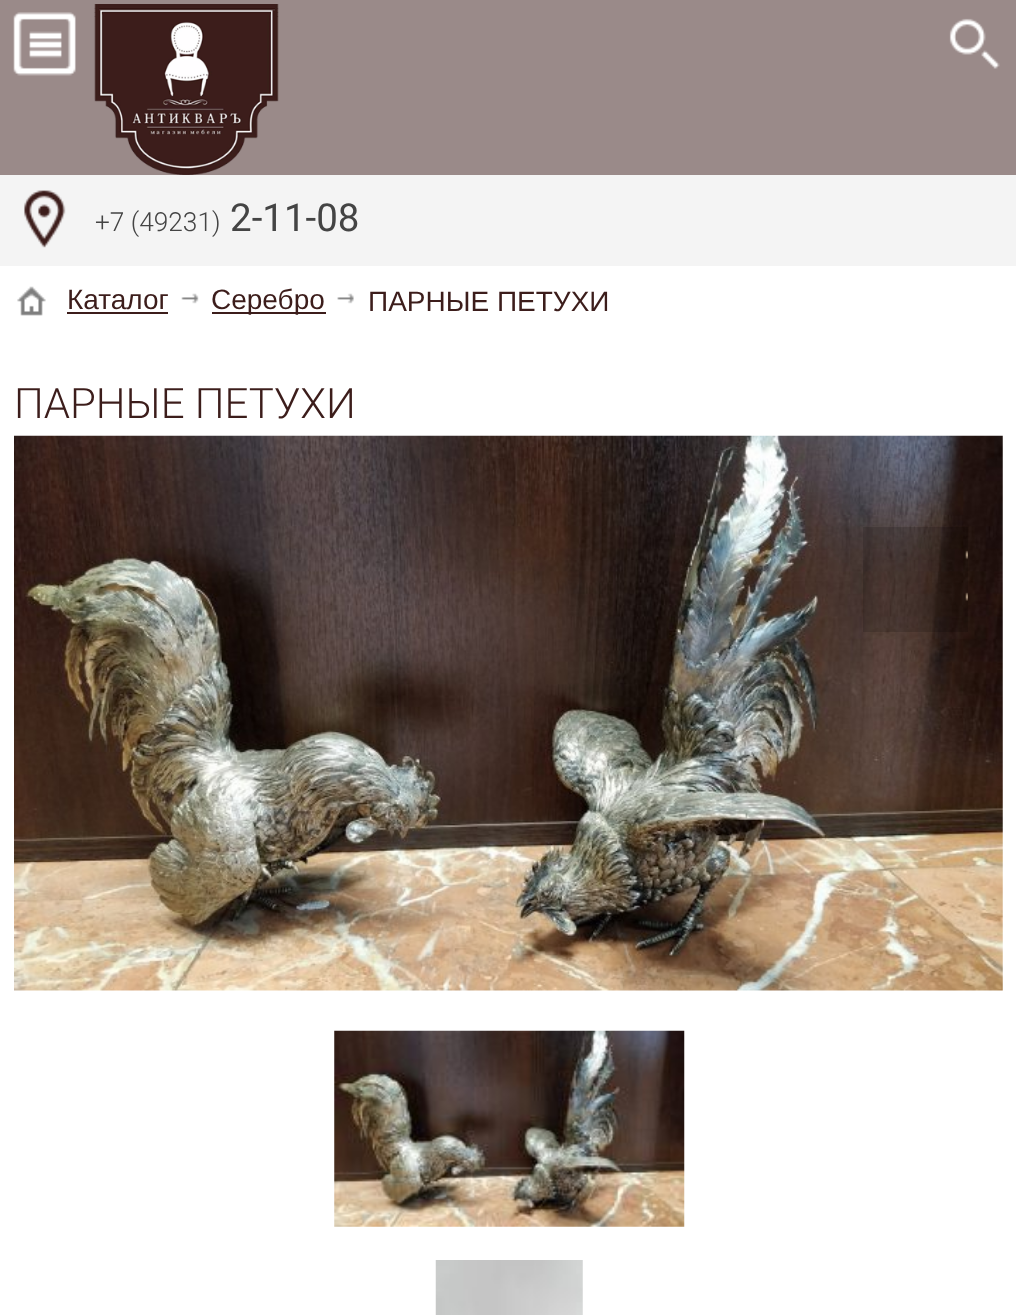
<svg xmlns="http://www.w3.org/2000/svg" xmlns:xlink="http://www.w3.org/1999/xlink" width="1016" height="1315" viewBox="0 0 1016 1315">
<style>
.cls-1{font:300 26.25px Roboto;fill:#444444}
.cls-2{font:38.5px Roboto;fill:#444444}
.cls-3{font:28px Liberation Sans;fill:#3c1d1b}
.cls-4{font:300 42px Roboto;fill:#3c1d1b}
</style>
<rect width="100%" height="100%" fill="#ffffff"/>
<rect fill="#9a8a89" x="0" y="0" width="1016" height="175"/>
<image xlink:href="image0.png" x="13" y="12" width="63" height="64"/>
<image xlink:href="image1.png" x="94" y="4" width="185" height="171"/>
<image xlink:href="image2.png" x="949" y="18" width="51" height="51"/>
<rect fill="#f4f4f4" x="0" y="175" width="1016" height="91"/>
<image xlink:href="image3.png" x="24" y="190" width="42" height="58"/>
<image xlink:href="image4.png" x="17" y="286" width="29" height="30"/>
<rect fill="#3c1d1b" x="67" y="312" width="101" height="2"/>
<image xlink:href="image5.png" x="181" y="293" width="18" height="11"/>
<rect fill="#3c1d1b" x="212" y="312" width="114" height="2"/>
<image xlink:href="image6.png" x="337" y="293" width="17" height="11"/>
<image xlink:href="image7.png" x="14" y="435" width="989" height="556"/>
<image xlink:href="image8.png" x="334" y="1030" width="351" height="197"/>
<image xlink:href="image9.png" x="435" y="1260" width="148" height="55"/>
<rect fill="#000000" fill-opacity="0.15" x="863" y="527" width="105" height="105"/>
<image xlink:href="image10.png" x="965" y="550" width="3" height="51"/>
<text class="cls-1" x="95" y="231">+7 (49231)</text>
<text class="cls-2" x="230" y="231">2-11-08</text>
<text class="cls-3" x="67" y="309">Каталог</text>
<text class="cls-3" x="211" y="309">Серебро</text>
<text class="cls-3" x="368" y="311">ПАРНЫЕ ПЕТУХИ</text>
<text class="cls-4" x="14" y="418">ПАРНЫЕ ПЕТУХИ</text>
</svg>
